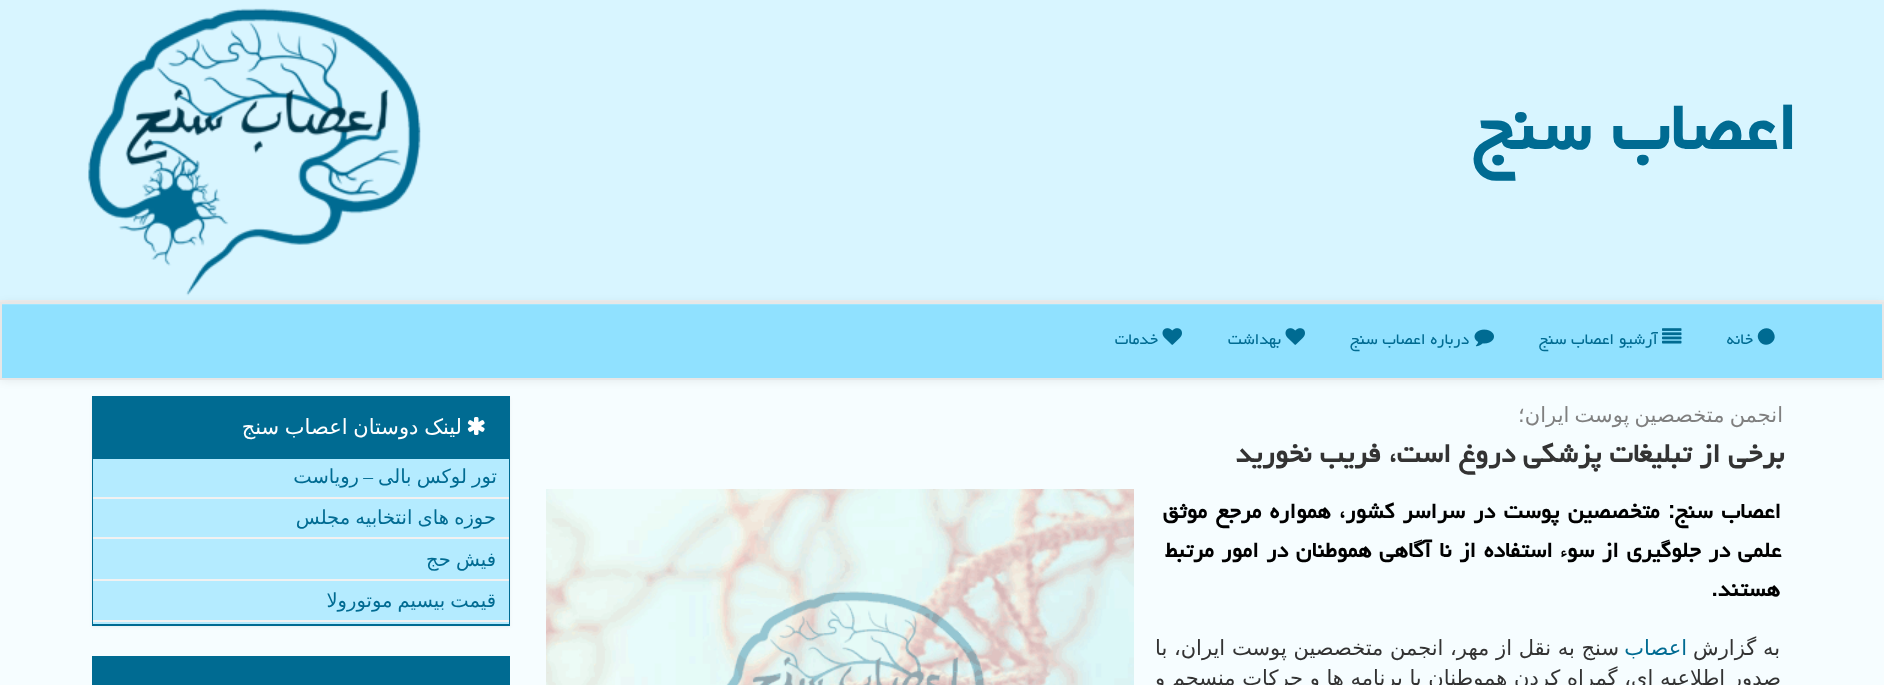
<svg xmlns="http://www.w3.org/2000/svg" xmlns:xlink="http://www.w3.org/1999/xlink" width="1884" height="685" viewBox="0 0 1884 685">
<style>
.cls-1{font:bold 84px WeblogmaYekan;direction:rtl;fill:#006b92}
.cls-2{font:19.5px WeblogmaYekan;direction:rtl;fill:#006b92}
.cls-3{font:21px DejaVu Sans;direction:rtl;fill:#808080}
.cls-4{font:bold 33.6px WeblogmaYekan;direction:rtl;fill:#333333}
.cls-5{font:bold 27px WeblogmaYekan;direction:rtl;fill:#000000}
.cls-6{font:21px DejaVu Sans;direction:rtl;fill:#333333}
.cls-7{font:21px DejaVu Sans;direction:rtl;fill:#006b92}
.cls-8{font:21px DejaVu Sans;direction:rtl;fill:#ffffff}
.cls-9{font:19.5px DejaVu Sans;direction:rtl;fill:#006b92}
.cls-10{font:19.5px Liberation Serif;direction:rtl;fill:#006b92}
</style>
<rect width="100%" height="100%" fill="#f6fdff"/>
<rect fill="#d8f5ff" x="0" y="0" width="1884" height="300"/>
<rect fill="#eeeeee" x="0" y="300" width="1884" height="2"/>
<image xlink:href="image0.png" x="88" y="8" width="333" height="288"/>
<rect fill="#000000" fill-opacity="0.07" filter="blur(4px)" x="0" y="303" width="1884" height="78"/>
<rect fill="#90e1ff" x="2" y="305" width="1880" height="73"/>
<rect fill="#a1e6ff" x="2" y="304" width="1881" height="1"/>
<rect fill="none" stroke="#e7e7e7" stroke-width="2" x="1" y="303" width="1882" height="76"/>
<path fill="#006b92" d="M1773.5 332.5C1779 342 1764.5 350 1759 340.5C1753.5 331.5 1768 323 1773.5 332.5Z"/>
<image xlink:href="image1.png" x="1662" y="328" width="20" height="16"/>
<image xlink:href="image2.png" x="1474" y="329" width="20" height="18"/>
<image xlink:href="image3.png" x="1285" y="328" width="20" height="17"/>
<image xlink:href="image3.png" x="1162" y="328" width="20" height="17"/>
<image xlink:href="image4.png" x="546" y="489" width="588" height="196"/>
<rect fill="#000000" fill-opacity="0.05" filter="blur(1.5px)" x="92" y="398" width="418" height="229"/>
<rect fill="none" stroke="#006b92" stroke-width="2" x="93" y="397" width="416" height="228"/>
<rect fill="#006b92" x="94" y="398" width="414" height="60"/>
<rect fill="#006b92" x="93" y="458" width="416" height="1"/>
<image xlink:href="image5.png" x="467" y="417" width="18" height="18"/>
<rect fill="#b4ebff" x="93" y="459" width="416" height="165"/>
<rect fill="#f1f1f1" x="93" y="497" width="416" height="2"/>
<rect fill="#f1f1f1" x="93" y="537" width="416" height="2"/>
<rect fill="#f1f1f1" x="93" y="579" width="416" height="2"/>
<rect fill="#f1f1f1" x="93" y="620" width="416" height="2"/>
<rect fill="none" stroke="#006b92" stroke-width="2" x="93" y="657" width="416" height="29"/>
<rect fill="#006b92" x="94" y="658" width="414" height="27"/>
<text class="cls-1" x="1797" y="149">اعصاب سنج</text>
<text class="cls-2" x="1753" y="344">خانه</text>
<text class="cls-2" x="1658" y="344">آرشیو اعصاب سنج</text>
<text class="cls-2" x="1469" y="344">درباره اعصاب سنج</text>
<text class="cls-2" x="1281" y="344">بهداشت</text>
<text class="cls-2" x="1158" y="344">خدمات</text>
<text class="cls-3" x="1783" y="422" word-spacing="-1.5">انجمن متخصصین پوست ایران؛</text>
<text class="cls-4" x="1784" y="462">برخی از تبلیغات پزشكی دروغ است، فریب نخورید</text>
<text class="cls-5"><tspan x="1781" y="518" word-spacing="2">اعصاب سنج: متخصصین پوست در سراسر كشور، همواره مرجع موثق</tspan><tspan x="1781" y="557" word-spacing="1.25">علمی در جلوگیری از سوء استفاده از نا آگاهی هموطنان در امور مرتبط</tspan></text>
<text class="cls-5" x="1780" y="596">هستند.</text>
<text class="cls-6" x="1780" y="655">به گزارش</text>
<text class="cls-7" x="1687" y="655">اعصاب</text>
<text class="cls-6" x="1619" y="655">سنج به نقل از مهر، انجمن متخصصین پوست ایران، با</text>
<text class="cls-6" x="1781" y="685">صدور اطلاعیه ای، گمراه كردن هموطنان با برنامه ها و حركات منسجم و</text>
<text class="cls-8" x="462" y="434" word-spacing="-1">لینک دوستان اعصاب سنج</text>
<text class="cls-9" x="497" y="483" word-spacing="-1">تور لوکس بالی</text>
<text class="cls-10" x="373" y="483">–</text>
<text class="cls-9" x="359" y="483">رویاست</text>
<text class="cls-9" x="496" y="524" word-spacing="-1">حوزه های انتخابیه مجلس</text>
<text class="cls-9" x="496" y="566" word-spacing="-1">فیش حج</text>
<text class="cls-9" x="496" y="607" word-spacing="-1">قیمت بیسیم موتورولا</text>
</svg>
